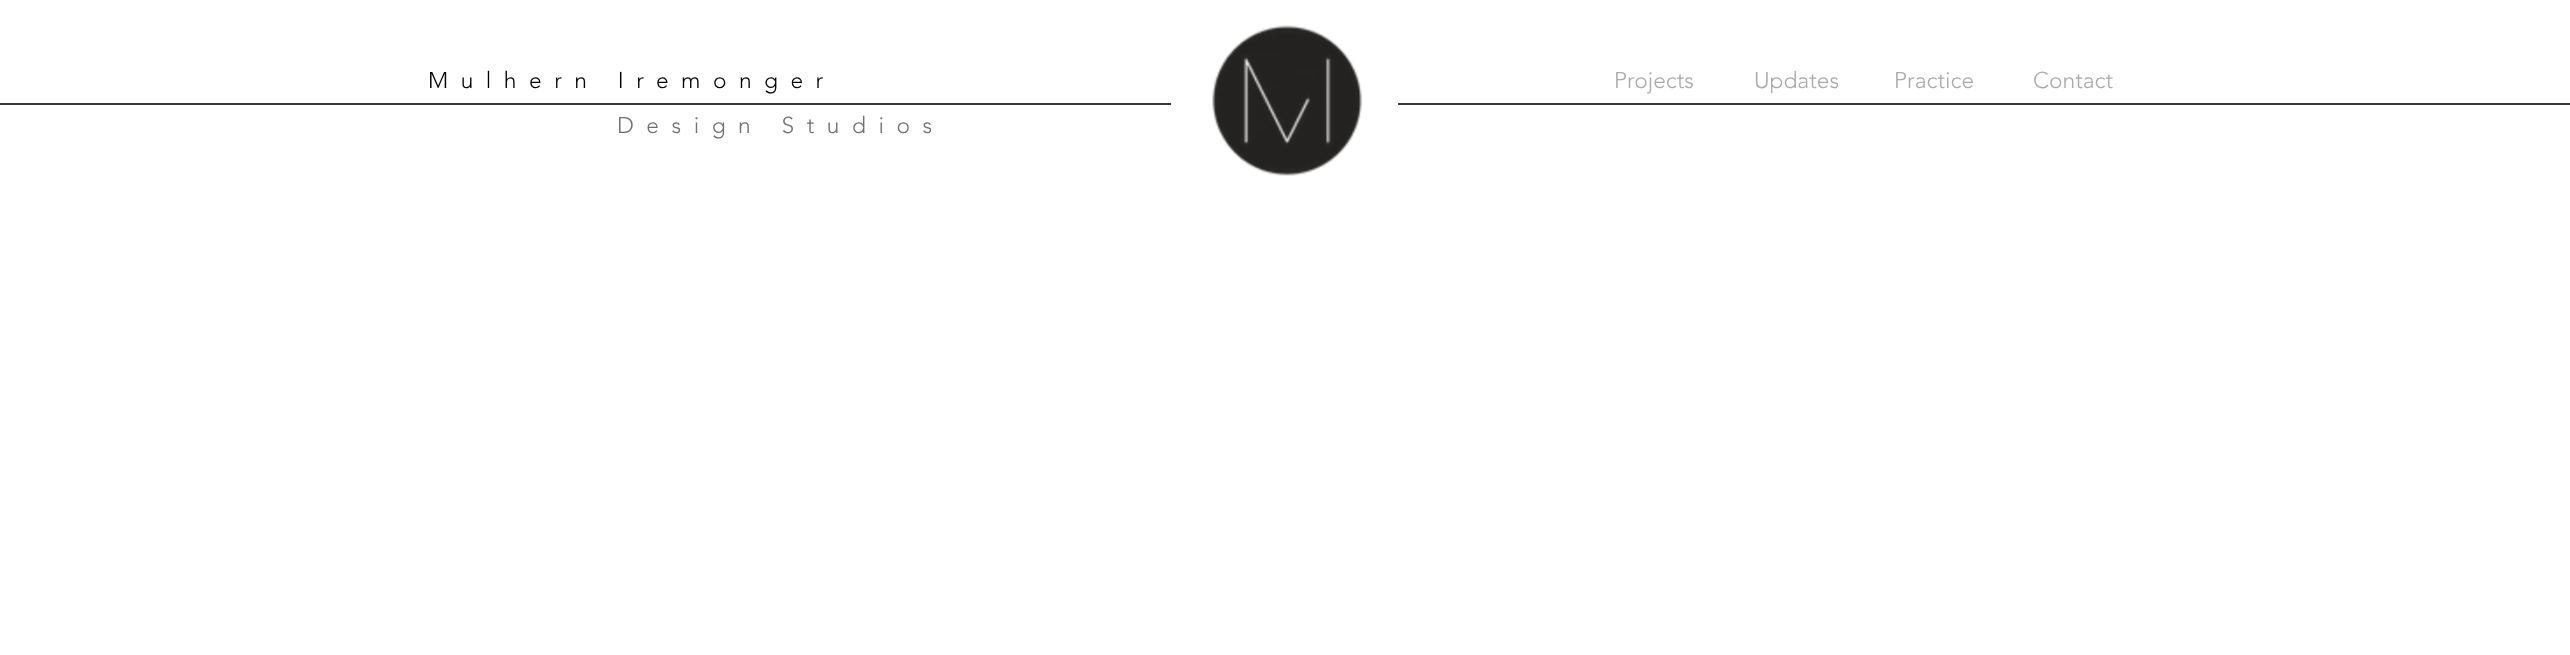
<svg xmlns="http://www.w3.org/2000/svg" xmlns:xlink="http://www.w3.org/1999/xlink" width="2570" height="655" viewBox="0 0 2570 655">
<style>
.cls-1{font:300 22.75px 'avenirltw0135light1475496';letter-spacing:12.5px;fill:#000000}
.cls-2{font:300 22.75px 'avenirltw0135light1475496';fill:#aaa8a8}
.cls-3{font:300 22.75px 'avenirltw0135light1475496';letter-spacing:12.5px;fill:#717070}
</style>
<rect width="100%" height="100%" fill="#ffffff"/>
<rect fill="#383838" x="0" y="103" width="2570" height="2"/>
<rect fill="#ffffff" x="1171" y="103" width="227" height="2"/>
<image xlink:href="image0.png" x="1212" y="25" width="151" height="151"/>
<text class="cls-1" x="428" y="88">Mulhern Iremonger</text>
<text class="cls-2" x="1614" y="88">Projects</text>
<text class="cls-2" x="1754" y="88">Updates</text>
<text class="cls-2" x="1894" y="88">Practice</text>
<text class="cls-2" x="2033" y="88">Contact</text>
<text class="cls-3" x="617" y="133">Design Studios</text>
</svg>
